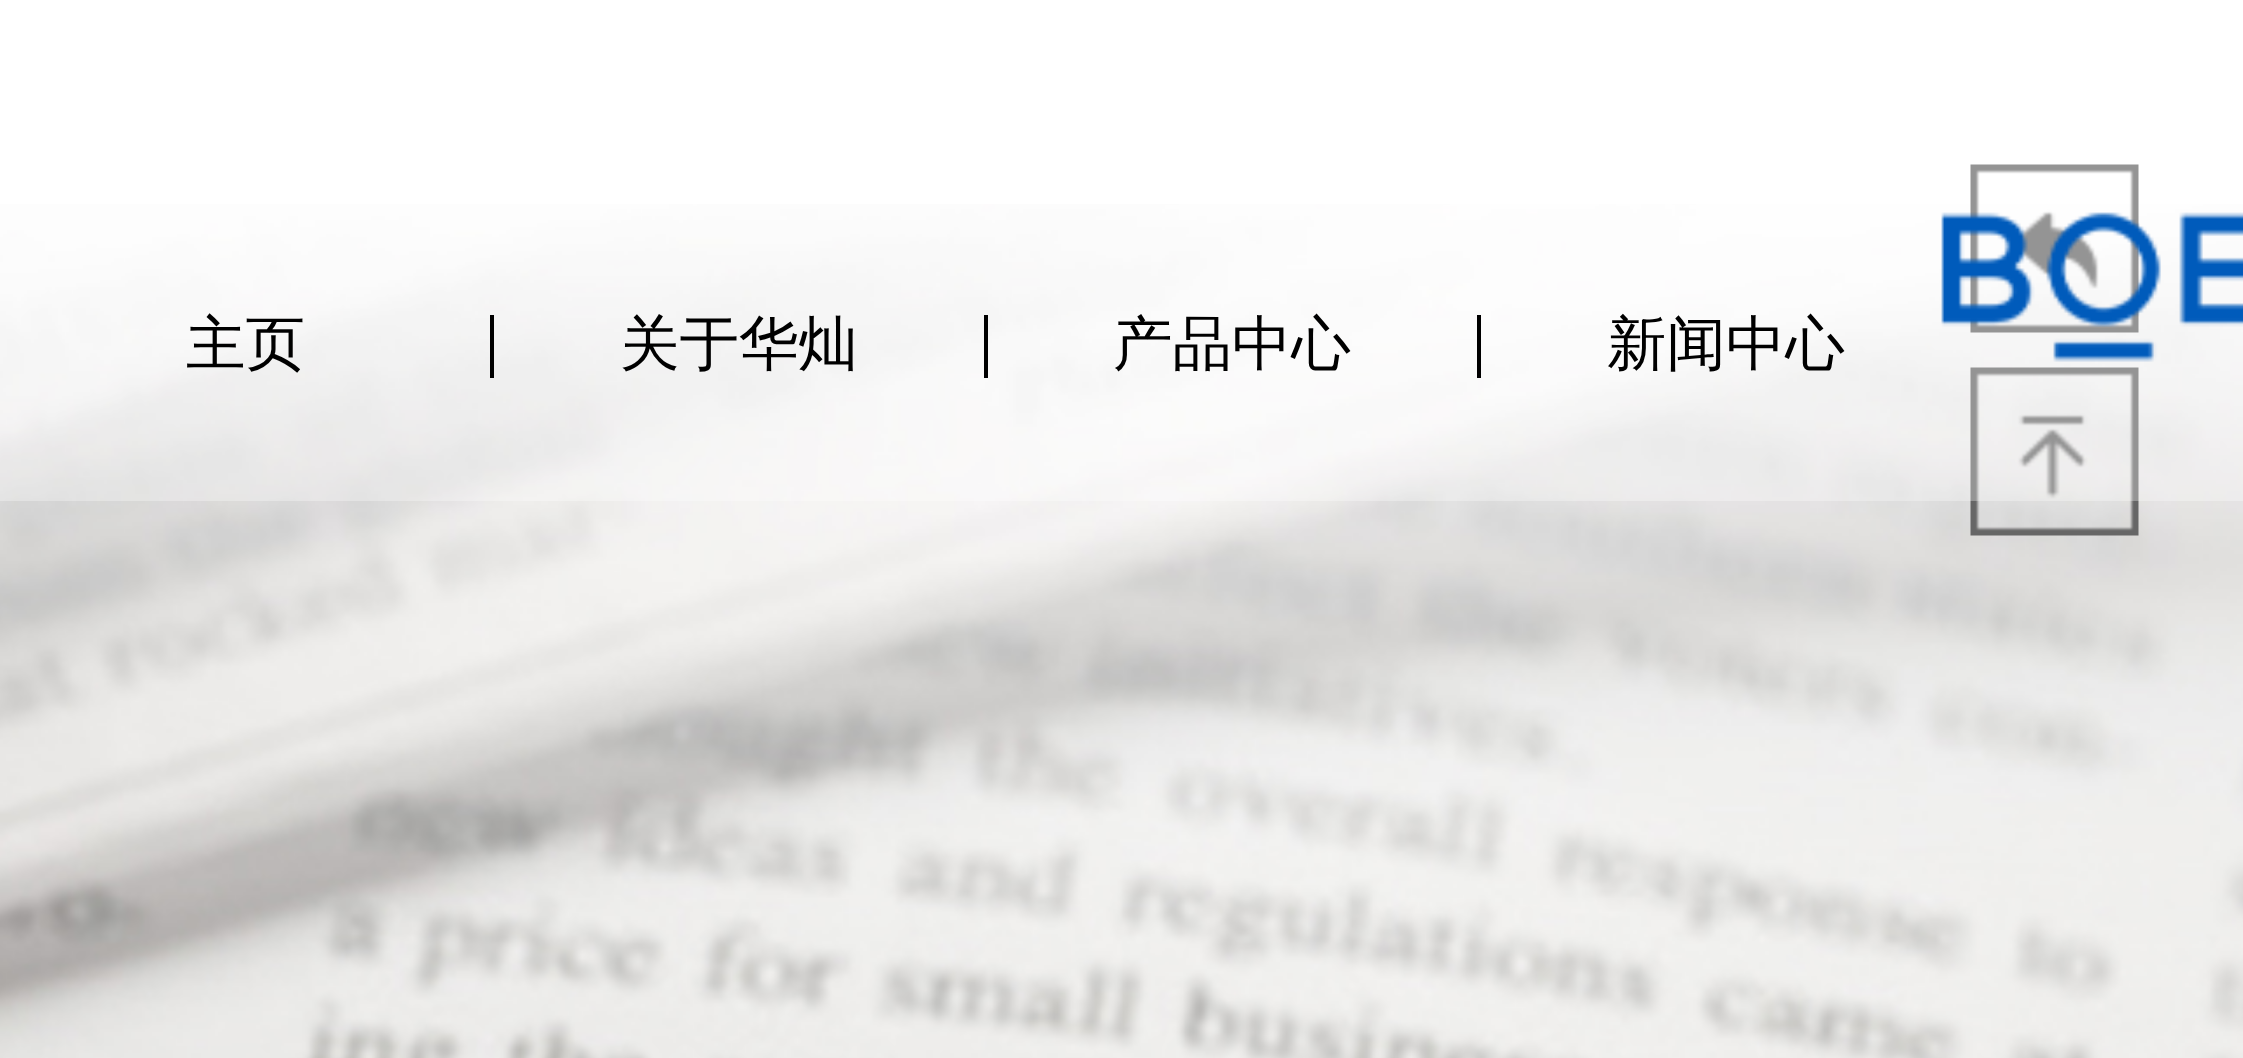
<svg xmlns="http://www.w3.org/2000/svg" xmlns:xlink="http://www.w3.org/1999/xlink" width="2243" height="1058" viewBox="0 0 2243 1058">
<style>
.cls-1{font:500 59.5px WenQuanYi Zen Hei;fill:#000000}
</style>
<rect width="100%" height="100%" fill="#ffffff"/>
<image xlink:href="image2.png" x="0" y="204" width="2243" height="854"/>
<image xlink:href="image0.png" x="1970" y="164" width="169" height="169"/>
<image xlink:href="image1.png" x="1970" y="367" width="169" height="169"/>
<rect fill="#ffffff" fill-opacity="0.3" x="0" y="164" width="2243" height="337"/>
<rect fill="#000000" x="490" y="315" width="4" height="63"/>
<rect fill="#000000" x="984" y="315" width="4" height="63"/>
<rect fill="#000000" x="1477" y="315" width="4" height="63"/>
<image xlink:href="image3.png" x="1941" y="212" width="302" height="150"/>
<text class="cls-1" x="186" y="364">主页</text>
<text class="cls-1" x="620" y="364">关于华灿</text>
<text class="cls-1" x="1113" y="364">产品中心</text>
<text class="cls-1" x="1607" y="364">新闻中心</text>
</svg>
